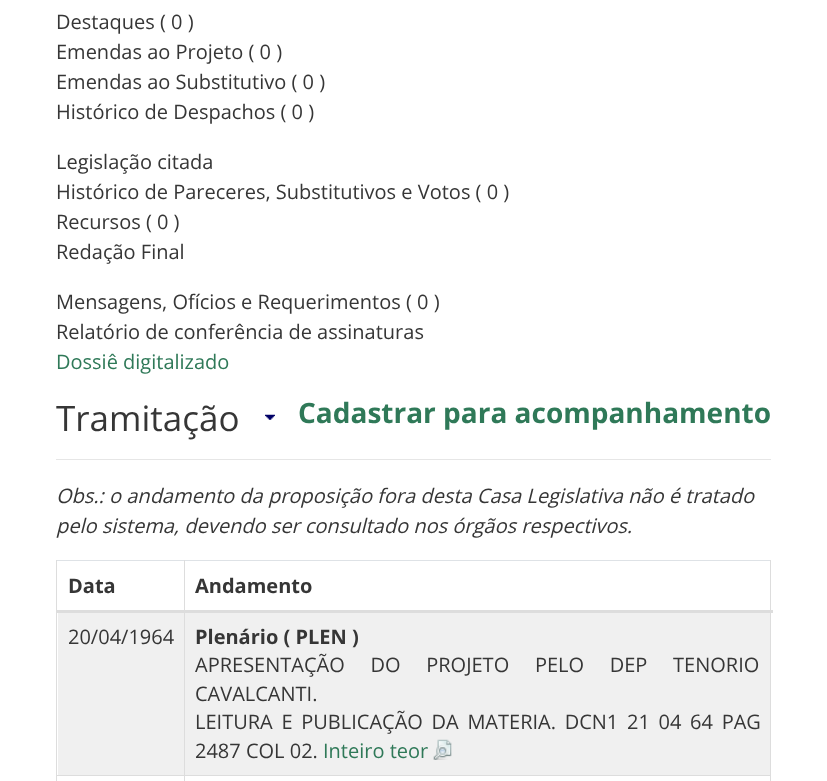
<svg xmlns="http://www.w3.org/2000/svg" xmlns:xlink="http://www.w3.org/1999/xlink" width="827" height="781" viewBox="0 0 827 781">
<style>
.cls-1{font:20px Open Sans;fill:#363636}
.cls-2{font:20px Open Sans;fill:#2f7958}
.cls-3{font:35px Open Sans;fill:#363636}
.cls-4{font:bold 28px Open Sans;fill:#2f7958}
.cls-5{font:italic 20px Open Sans;fill:#363636}
.cls-6{font:bold 20px Open Sans;fill:#363636}
</style>
<rect width="100%" height="100%" fill="#ffffff"/>
<image xlink:href="image0.png" x="265" y="414" width="10" height="6"/>
<rect fill="#e6e6e6" x="56" y="459" width="715" height="1"/>
<rect fill="#dee2e6" x="56" y="560" width="715" height="1"/>
<rect fill="#dddddd" x="184" y="775" width="587" height="1"/>
<rect fill="#dddddd" x="184" y="775" width="1" height="6"/>
<rect fill="#dddddd" x="56" y="775" width="129" height="1"/>
<rect fill="#dddddd" x="56" y="560" width="1" height="221"/>
<rect fill="#dddddd" x="770" y="560" width="1" height="221"/>
<rect fill="#f0f0f0" x="58" y="613" width="712" height="162"/>
<rect fill="#dddddd" x="184" y="560" width="1" height="216"/>
<rect fill="#dddddd" x="56" y="610" width="717" height="3"/>
<image xlink:href="image1.png" x="433" y="739" width="19" height="21"/>
<text class="cls-1"><tspan x="56" y="29">Destaques ( 0 )</tspan><tspan x="56" y="59">Emendas ao Projeto ( 0 )</tspan><tspan x="56" y="89">Emendas ao Substitutivo ( 0 )</tspan><tspan x="56" y="119">Histórico de Despachos ( 0 )</tspan></text>
<text class="cls-1"><tspan x="56" y="169">Legislação citada</tspan><tspan x="56" y="199">Histórico de Pareceres, Substitutivos e Votos ( 0 )</tspan><tspan x="56" y="229">Recursos ( 0 )</tspan><tspan x="56" y="259">Redação Final</tspan></text>
<text class="cls-1"><tspan x="56" y="309">Mensagens, Ofícios e Requerimentos ( 0 )</tspan><tspan x="56" y="339">Relatório de conferência de assinaturas</tspan></text>
<text class="cls-2" x="56" y="369">Dossiê digitalizado</text>
<text class="cls-3" x="56" y="431">Tramitação</text>
<text class="cls-4" x="298" y="423">Cadastrar para acompanhamento</text>
<text class="cls-5"><tspan x="56" y="503">Obs.: o andamento da proposição fora desta Casa Legislativa não é tratado</tspan><tspan x="56" y="533">pelo sistema, devendo ser consultado nos órgãos respectivos.</tspan></text>
<text class="cls-6" x="68" y="593">Data</text>
<text class="cls-6" x="195" y="593">Andamento</text>
<text class="cls-1" x="68" y="644">20/04/1964</text>
<text class="cls-6" x="195" y="644">Plenário ( PLEN )</text>
<text class="cls-1"><tspan x="195" y="672" word-spacing="20.5">APRESENTAÇÃO DO PROJETO PELO DEP TENORIO</tspan><tspan x="195" y="701">CAVALCANTI.</tspan><tspan x="195" y="729" word-spacing="3.5">LEITURA E PUBLICAÇÃO DA MATERIA. DCN1 21 04 64 PAG</tspan><tspan x="195" y="758">2487 COL 02.</tspan></text>
<text class="cls-2" x="323" y="758">Inteiro teor</text>
</svg>
